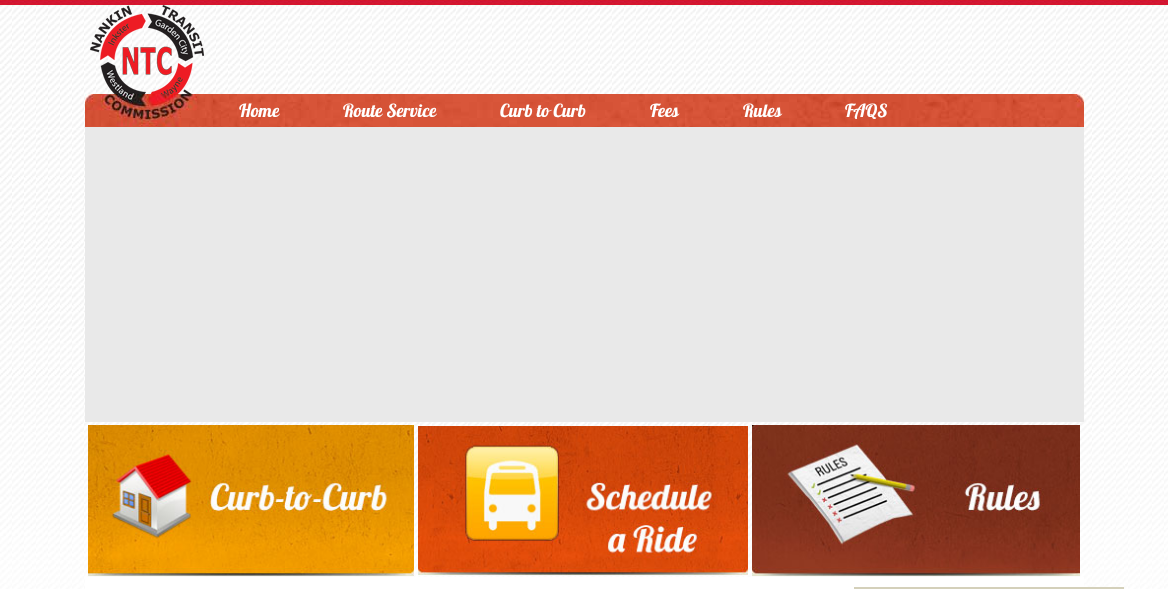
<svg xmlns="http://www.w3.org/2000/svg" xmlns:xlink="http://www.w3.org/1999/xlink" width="1168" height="589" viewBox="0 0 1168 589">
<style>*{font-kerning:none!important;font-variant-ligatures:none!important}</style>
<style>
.cls-1{font:18px 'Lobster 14';fill:#ffffff}
</style>
<rect width="100%" height="100%" fill="#ffffff"/>
<image xlink:href="image0.png" x="0" y="0" width="1168" height="589"/>
<image xlink:href="image1.png" x="90" y="5" width="114" height="89"/>
<image xlink:href="image2.png" x="85" y="94" width="999" height="33"/>
<rect fill="#e9e9e9" x="85" y="127" width="999" height="295"/>
<image xlink:href="image3.png" x="88" y="425" width="326" height="152"/>
<image xlink:href="image4.png" x="418" y="426" width="330" height="150"/>
<image xlink:href="image5.png" x="752" y="425" width="328" height="152"/>
<rect fill="#ffffff" x="85" y="577" width="999" height="12"/>
<rect fill="none" stroke="#d4d0ba" stroke-width="2" x="855" y="588" width="268" height="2"/>
<text class="cls-1" x="239" y="117">Home</text>
<text class="cls-1" x="343" y="117">Route Service</text>
<text class="cls-1" x="500" y="117">Curb to Curb</text>
<text class="cls-1" x="650" y="117">Fees</text>
<text class="cls-1" x="743" y="117">Rules</text>
<text class="cls-1" x="845" y="117">FAQS</text>
</svg>
